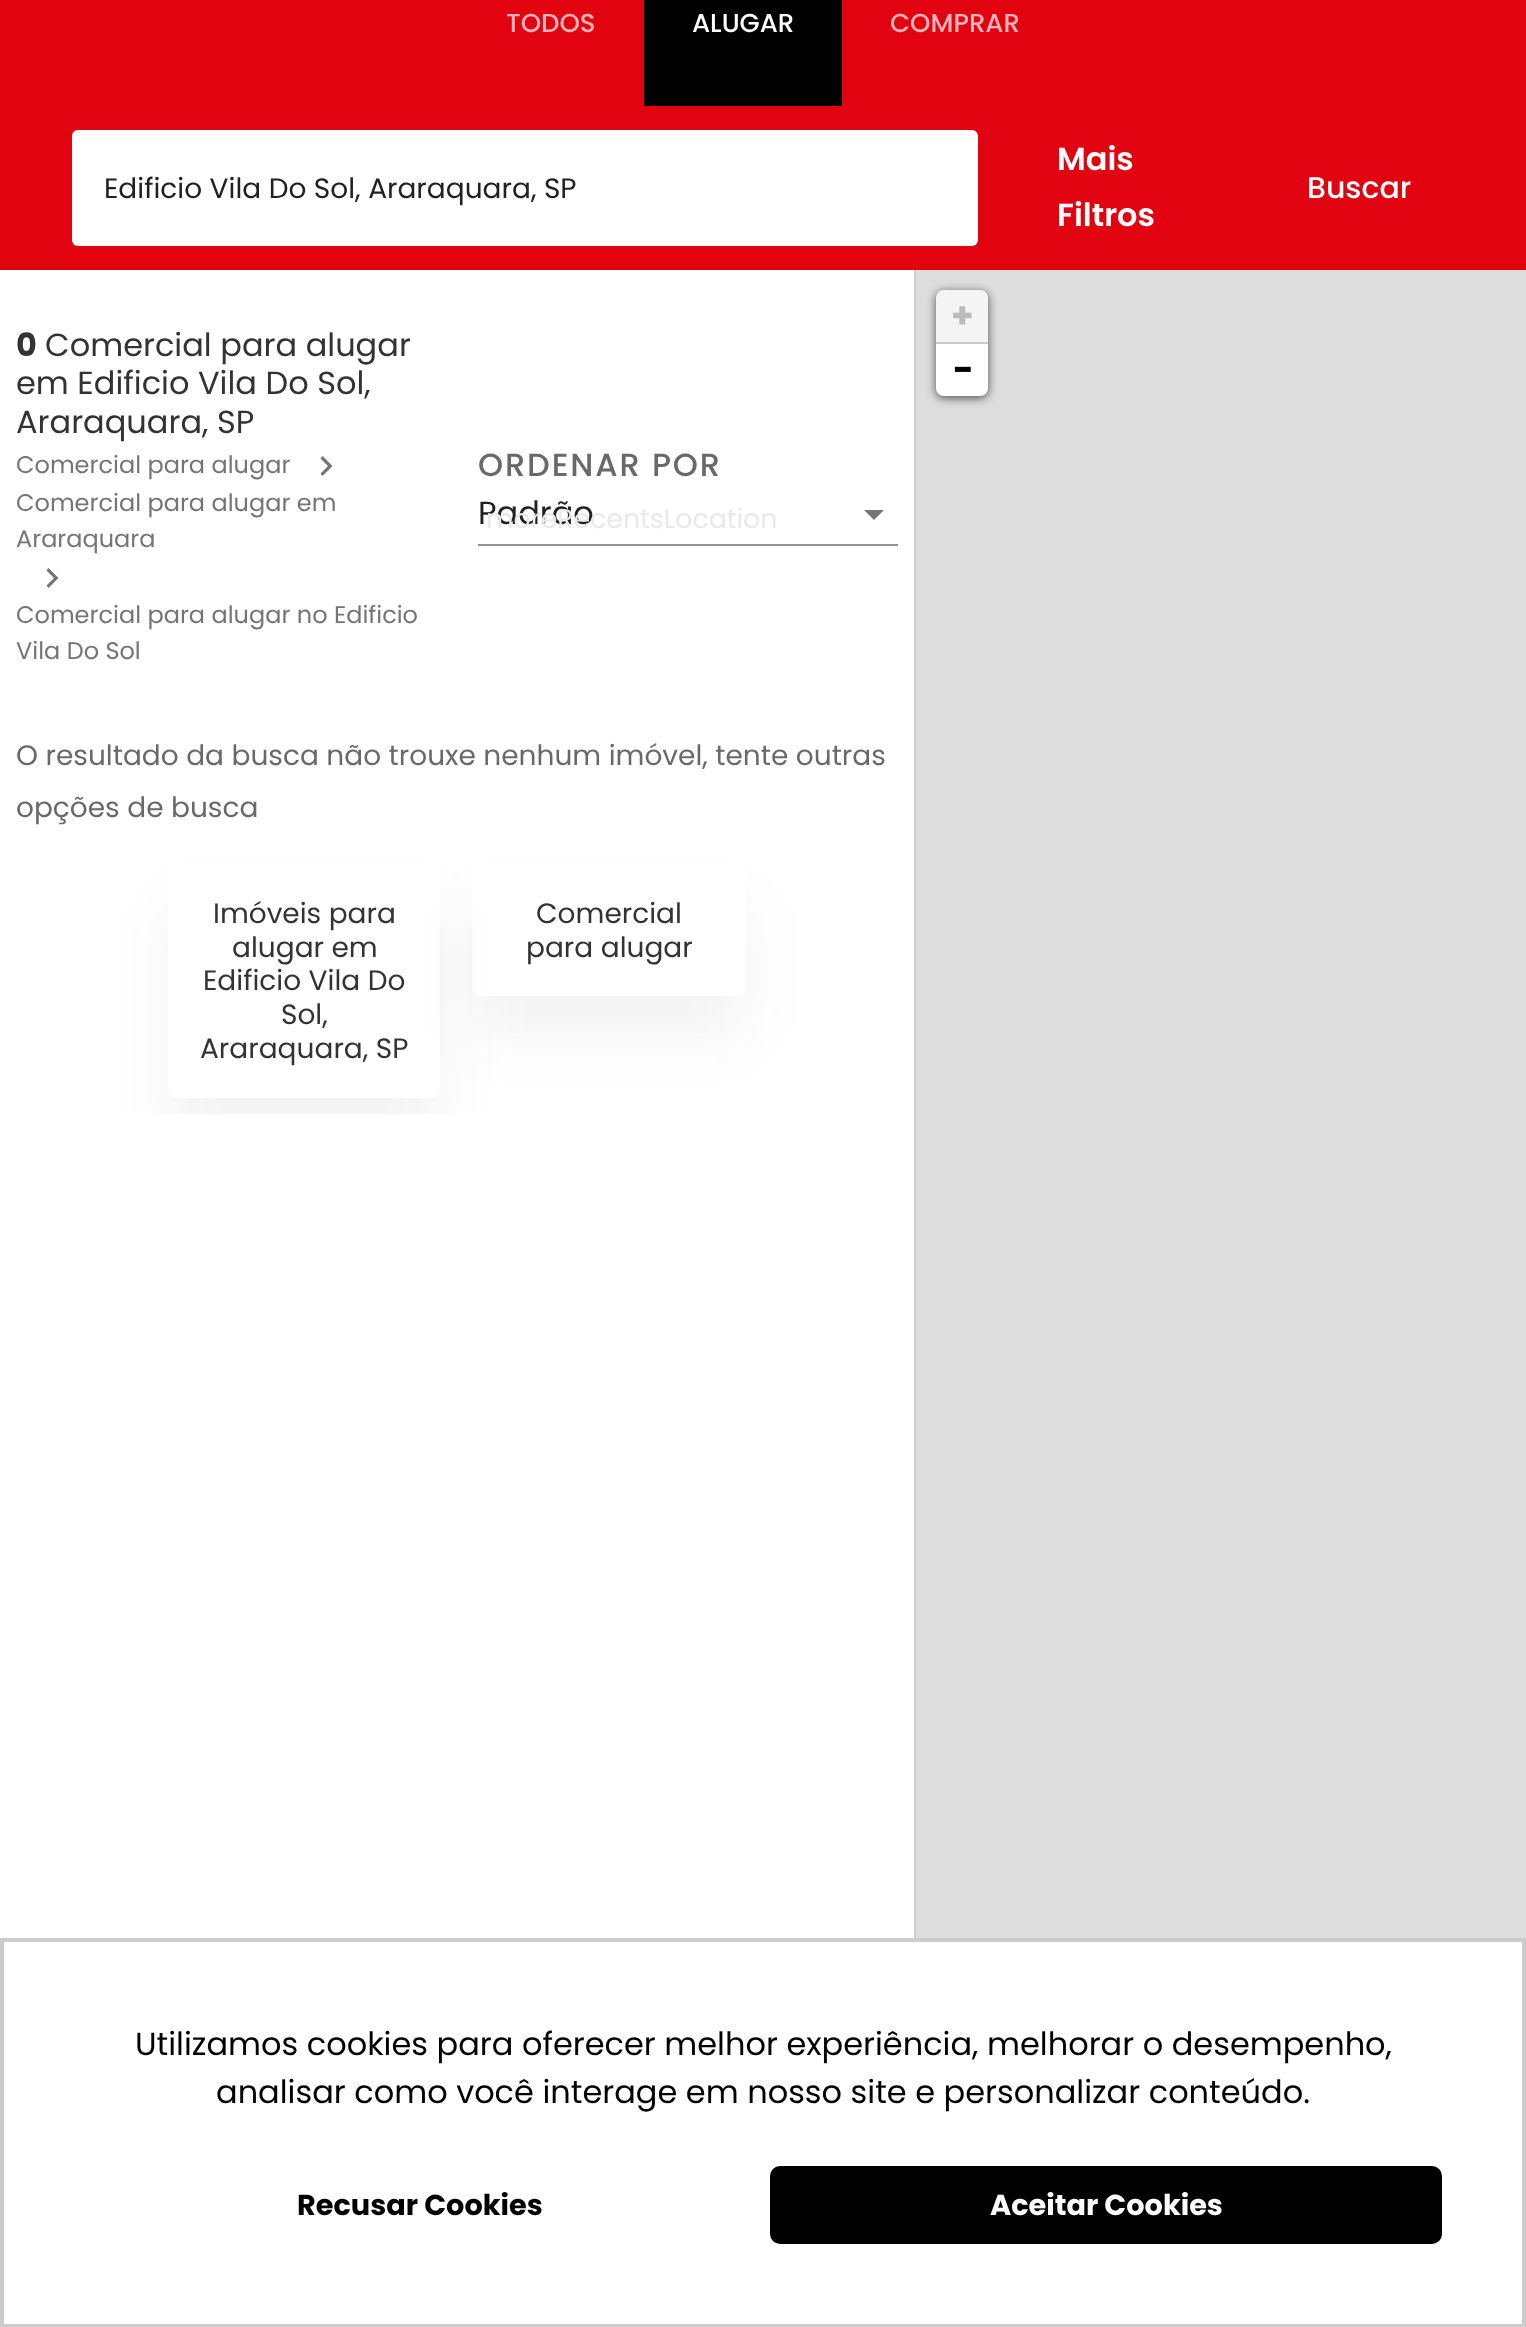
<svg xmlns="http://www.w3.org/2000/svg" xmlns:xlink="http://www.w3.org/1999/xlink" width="1526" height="2327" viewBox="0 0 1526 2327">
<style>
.cls-1{font:500 26px Poppins;fill:#f6b3b8}
.cls-2{font:500 26px Poppins;fill:#ffffff}
.cls-3{font:28px Poppins;fill:#212121}
.cls-4{font:600 32px Poppins;fill:#ffffff}
.cls-5{font:500 30px Poppins;fill:#ffffff}
.cls-6{font:bold 32px Poppins;fill:#333333}
.cls-7{font:32px Poppins;fill:#333333}
.cls-8{font:24px Poppins;fill:#757575}
.cls-9{font:500 32px Poppins;letter-spacing:1.9px;fill:#696969}
.cls-10{font:32px Poppins;fill:#212121}
.cls-11{font:26.75px Poppins;fill:#e9e9e9}
.cls-12{font:28px Poppins;fill:#696969}
.cls-13{font:28px Poppins;fill:#333333}
.cls-14{font:bold 36px Poppins;fill:#bbbbbb}
.cls-15{font:bold 36px Poppins;fill:#000000}
.cls-16{font:32px Poppins;fill:#000000}
.cls-17{font:bold 28.75px Poppins;fill:#000000}
.cls-18{font:bold 28.75px Poppins;fill:#ffffff}
</style>
<defs>
<clipPath id="clip1"><rect x="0" y="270" width="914" height="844"/></clipPath>
<clipPath id="clip2"><path d="M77 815H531V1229H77ZM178 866H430C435.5 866 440 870.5 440 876V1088C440 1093.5 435.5 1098 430 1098H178C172.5 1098 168 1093.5 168 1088V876C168 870.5 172.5 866 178 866Z" clip-rule="evenodd"/></clipPath>
<clipPath id="clip3"><path d="M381 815H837V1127H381ZM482 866H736C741.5 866 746 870.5 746 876V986C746 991.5 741.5 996 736 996H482C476.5 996 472 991.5 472 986V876C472 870.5 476.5 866 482 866Z" clip-rule="evenodd"/></clipPath>
</defs>
<rect width="100%" height="100%" fill="#ffffff"/>
<rect fill="#e20311" x="0" y="0" width="1526" height="270"/>
<rect fill="#000000" x="644" y="0" width="198" height="106"/>
<rect fill="#ffffff" x="72" y="130" width="906" height="116" rx="6"/>
<rect fill="#cecece" x="914" y="270" width="2" height="1668"/>
<path fill="#757575" d="M322.5 456L320.5 458.5L328 466L320.5 473.5L322.5 476L332.5 466Z"/>
<path fill="#757575" d="M48.5 568L46.5 570.5L54 578L46.5 585.5L48.5 588L58.5 578Z"/>
<path fill="#757575" d="M864 510L874 520L884 510Z"/>
<rect fill="#949494" x="478" y="544" width="420" height="2"/>
<g clip-path="url(#clip1)">
<g clip-path="url(#clip2)">
<rect fill="#333333" fill-opacity="0.06" filter="blur(30px)" x="168" y="906" width="272" height="232" rx="10"/>
</g>
</g>
<g clip-path="url(#clip3)">
<rect fill="#333333" fill-opacity="0.06" filter="blur(30px)" x="472" y="906" width="274" height="130" rx="10"/>
</g>
<rect fill="#dddddd" x="916" y="270" width="610" height="1668"/>
<rect fill="#000000" fill-opacity="0.65" filter="blur(5px)" x="936" y="292" width="52" height="106" rx="8"/>
<path fill="#f4f4f4" d="M944 290H980C984.5 290 988 293.5 988 298V344H936V298C936 293.5 939.5 290 944 290Z"/>
<rect fill="#cccccc" x="936" y="342" width="52" height="2"/>
<path fill="#ffffff" d="M936 344H988V388C988 392.5 984.5 396 980 396H944C939.5 396 936 392.5 936 388Z"/>
<rect fill="none" stroke="#cccccc" stroke-width="4" x="2" y="1940" width="1522" height="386"/>
<rect fill="#000000" x="770" y="2166" width="672" height="78" rx="10"/>
<text class="cls-1" x="506" y="32">TODOS</text>
<text class="cls-2" x="692" y="32">ALUGAR</text>
<text class="cls-1" x="890" y="32">COMPRAR</text>
<text class="cls-3" x="104" y="198">Edificio Vila Do Sol, Araraquara, SP</text>
<text class="cls-4"><tspan x="1057" y="170">Mais</tspan><tspan x="1057" y="226">Filtros</tspan></text>
<text class="cls-5" x="1307" y="198">Buscar</text>
<text class="cls-6" x="16" y="356">0</text>
<text class="cls-7" x="45" y="356">Comercial para alugar</text>
<text class="cls-7"><tspan x="16" y="394">em Edificio Vila Do Sol,</tspan><tspan x="16" y="433">Araraquara, SP</tspan></text>
<text class="cls-8"><tspan x="16" y="473">Comercial para alugar</tspan><tspan x="16" y="511">Comercial para alugar em</tspan><tspan x="16" y="547">Araraquara</tspan></text>
<text class="cls-8"><tspan x="16" y="623">Comercial para alugar no Edificio</tspan><tspan x="16" y="659">Vila Do Sol</tspan></text>
<text class="cls-9" x="478" y="476">ORDENAR POR</text>
<text class="cls-10" x="478" y="524">Padrão</text>
<text class="cls-11" x="486" y="528">moreRecentsLocation</text>
<text class="cls-12"><tspan x="16" y="765">O resultado da busca não trouxe nenhum imóvel, tente outras</tspan><tspan x="16" y="817">opções de busca</tspan></text>
<text class="cls-13" x="213" y="923">Imóveis para</text>
<text class="cls-13" x="232" y="957">alugar em</text>
<text class="cls-13" x="203" y="990">Edificio Vila Do</text>
<text class="cls-13" x="281" y="1024">Sol,</text>
<text class="cls-13" x="200" y="1058">Araraquara, SP</text>
<text class="cls-13" x="536" y="923">Comercial</text>
<text class="cls-13" x="526" y="957">para alugar</text>
<text class="cls-14" x="951" y="328">+</text>
<text class="cls-15" x="953" y="382">−</text>
<text class="cls-16" x="135" y="2055">Utilizamos cookies para oferecer melhor experiência, melhorar o desempenho,</text>
<text class="cls-16" x="216" y="2103">analisar como você interage em nosso site e personalizar conteúdo.</text>
<text class="cls-17" x="297" y="2215">Recusar Cookies</text>
<text class="cls-18" x="990" y="2215">Aceitar Cookies</text>
</svg>
